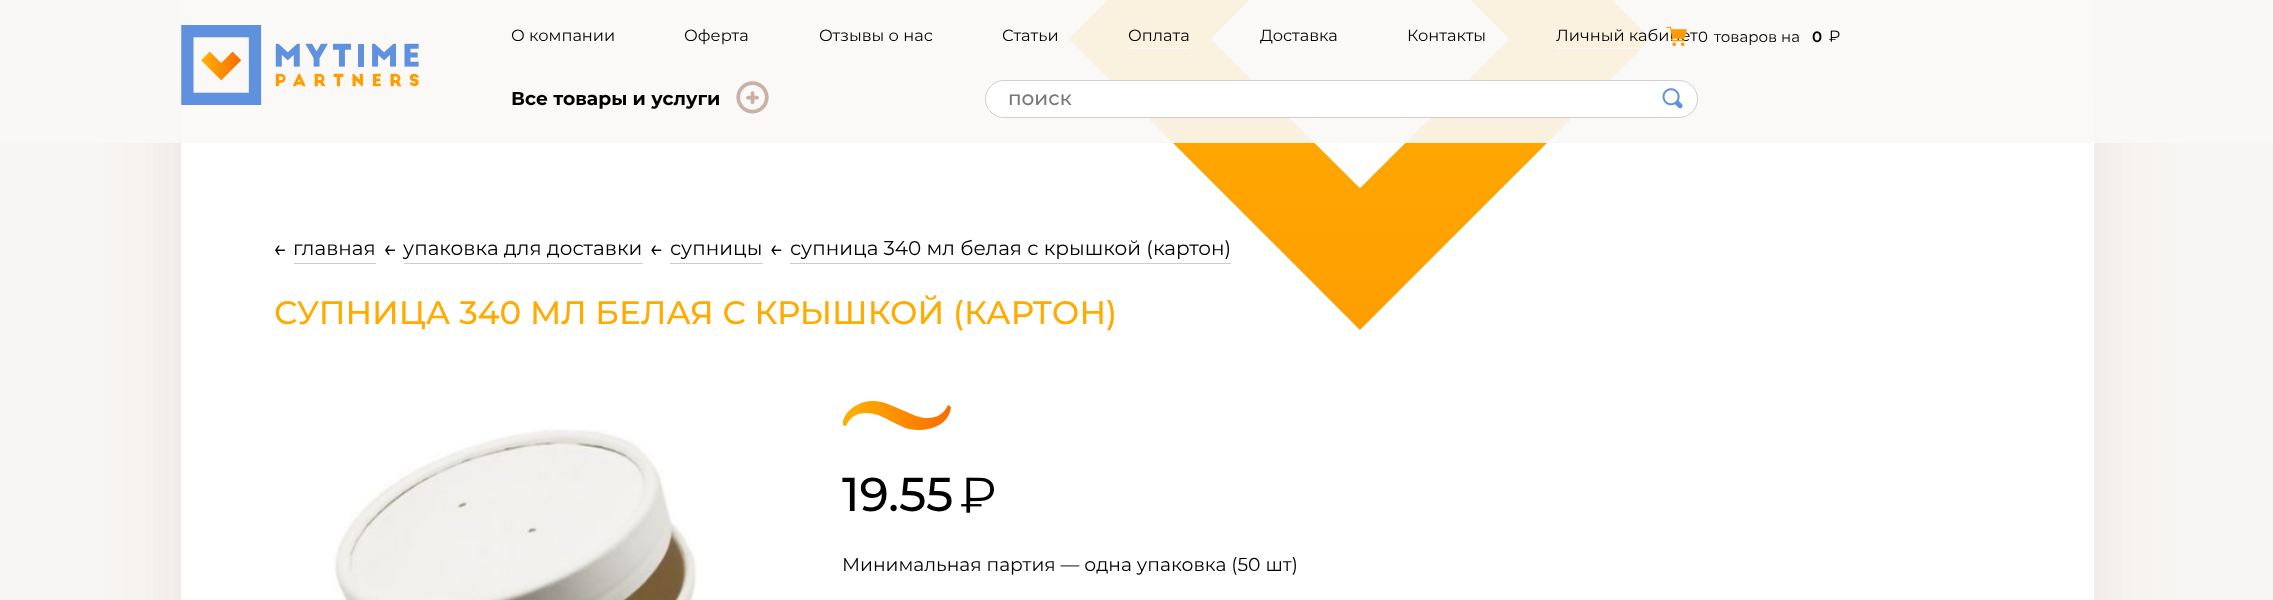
<svg xmlns="http://www.w3.org/2000/svg" xmlns:xlink="http://www.w3.org/1999/xlink" width="2273" height="600" viewBox="0 0 2273 600">
<style>
.cls-1{font:20px Montserrat;fill:#000000}
.cls-2{font:500 32.5px Montserrat;fill:#ffab01}
.cls-3{font:bold 18.75px Montserrat;fill:#000000}
.cls-4{font:500 20px Montserrat;fill:#787878}
.cls-5{font:600 15px Montserrat;fill:#000000}
.cls-6{font:15px Montserrat;fill:#000000}
.cls-7{font:16.25px Montserrat;fill:#000000}
.cls-8{font:500 47.5px Montserrat;fill:#000000}
.cls-9{font:18.75px Montserrat;fill:#000000}
</style>
<defs>
<clipPath id="clip1"><rect x="843" y="401" width="108" height="29"/></clipPath>
<linearGradient id="g1" gradientUnits="userSpaceOnUse" x1="843" y1="416" x2="951" y2="416"><stop offset="0.06" stop-color="#ffae00"/><stop offset="1" stop-color="#f96c00"/></linearGradient>
</defs>
<rect width="100%" height="100%" fill="#f8f6f4"/>
<rect fill="#eae2de" filter="blur(40px)" x="181" y="40" width="1913" height="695" rx="15"/>
<rect fill="#ffffff" x="181" y="0" width="1913" height="600"/>
<image xlink:href="image5.png" x="275" y="245" width="10" height="10"/>
<rect fill="#cccccc" x="294" y="263" width="82" height="1"/>
<image xlink:href="image5.png" x="385" y="245" width="10" height="10"/>
<rect fill="#cccccc" x="404" y="263" width="239" height="1"/>
<image xlink:href="image6.png" x="651" y="245" width="11" height="10"/>
<rect fill="#cccccc" x="670" y="263" width="93" height="1"/>
<image xlink:href="image6.png" x="771" y="245" width="11" height="10"/>
<rect fill="#cccccc" x="790" y="263" width="441" height="1"/>
<image xlink:href="image8.png" x="332" y="429" width="365" height="171"/>
<g clip-path="url(#clip1)">
<path fill="url(#g1)" d="M873 401C878 401 883 402 888 404L916 416C928 420 942 419 948 405L951 407C950 415 946 421 939 425C930 430 919 431 909 429C898 426 889 419 878 415C865 411 852 412 846 426L842 425C844 410 859 401 873 401Z"/>
</g>
<image xlink:href="image9.png" x="961" y="477" width="33" height="36"/>
<text class="cls-1" x="293" y="255">главная</text>
<text class="cls-1" x="403" y="255">упаковка для доставки</text>
<text class="cls-1" x="670" y="255">супницы</text>
<text class="cls-1" x="790" y="255">супница 340 мл белая с крышкой (картон)</text>
<text class="cls-2" x="274" y="324">СУПНИЦА 340 МЛ БЕЛАЯ С КРЫШКОЙ (КАРТОН)</text>
<image xlink:href="image7.png" x="1069" y="0" width="582" height="330"/>
<rect fill="#faf8f7" fill-opacity="0.9" x="0" y="0" width="2273" height="143"/>
<image xlink:href="image3.png" x="736" y="81" width="33" height="33"/>
<text class="cls-3" x="511" y="105">Все товары и услуги</text>
<rect fill="#ffffff" stroke="#cfcfcf" x="985.5" y="80.5" width="712" height="37" rx="18.5"/>
<image xlink:href="image4.png" x="1662" y="88" width="21" height="21"/>
<text class="cls-4" x="1008" y="105">поиск</text>
<image xlink:href="image2.png" x="1829" y="30" width="11" height="12"/>
<text class="cls-5" x="1812" y="42">0</text>
<text class="cls-6" x="1714" y="42">товаров на</text>
<text class="cls-6" x="1698" y="42">0</text>
<text class="cls-7" x="1556" y="41">Личный кабинет</text>
<image xlink:href="image1.png" x="1666" y="26" width="21" height="21"/>
<rect fill="#faf8f7" x="1556" y="48" width="86" height="1"/>
<text class="cls-7" x="1407" y="41">Контакты</text>
<text class="cls-7" x="1260" y="41">Доставка</text>
<text class="cls-7" x="1128" y="41">Оплата</text>
<rect fill="#faf8f7" x="1129" y="48" width="61" height="1"/>
<text class="cls-7" x="1002" y="41">Статьи</text>
<text class="cls-7" x="819" y="41">Отзывы о нас</text>
<text class="cls-7" x="684" y="41">Оферта</text>
<text class="cls-7" x="511" y="41">О компании</text>
<image xlink:href="image0.png" x="181" y="25" width="238" height="80"/>
<text class="cls-8" x="842" y="511">19.55</text>
<text class="cls-9" x="842" y="571">Минимальная партия — одна упаковка (50 шт)</text>
</svg>
